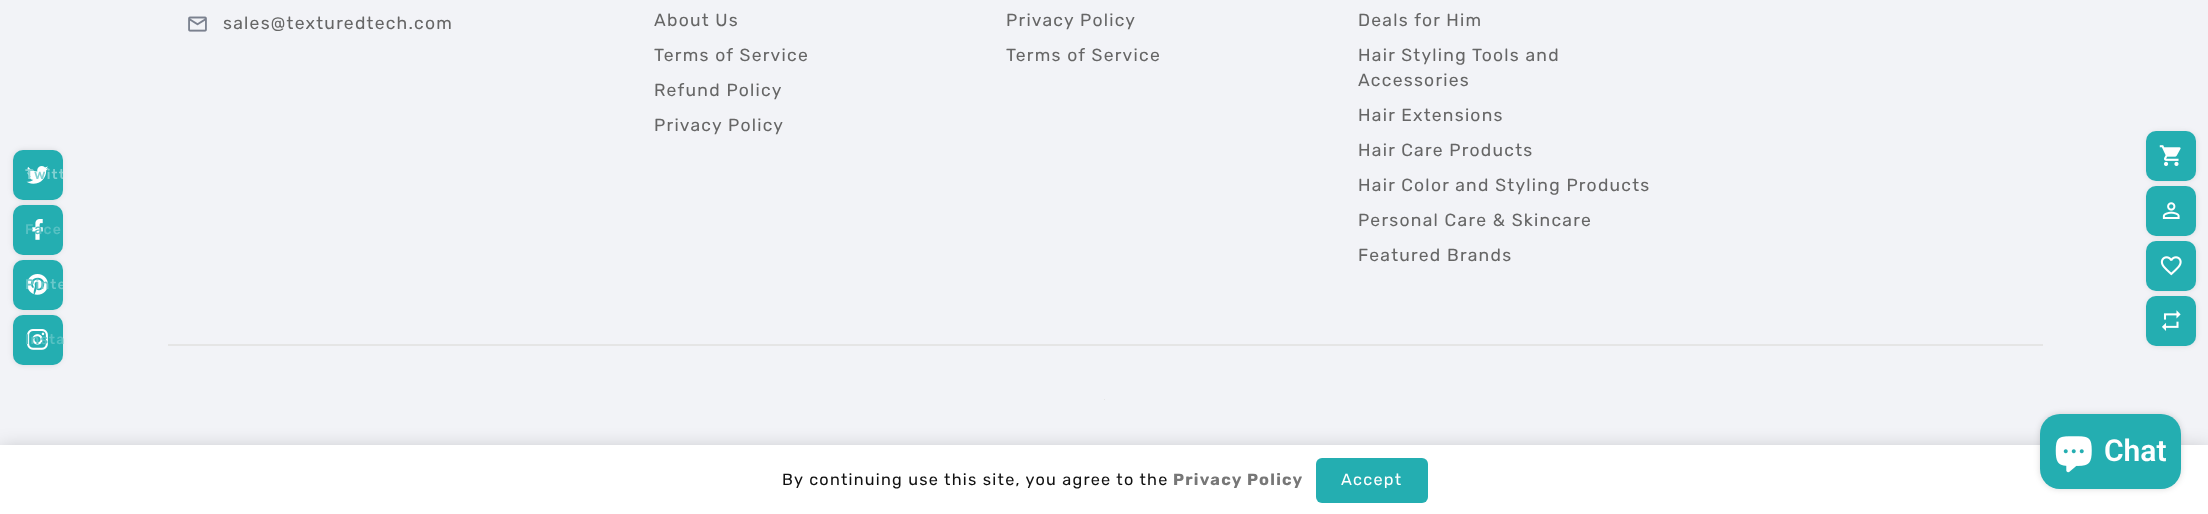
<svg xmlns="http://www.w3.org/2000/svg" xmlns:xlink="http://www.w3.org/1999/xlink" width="2208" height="514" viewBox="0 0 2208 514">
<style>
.cls-1{font:500 14px Rubik;letter-spacing:1.25px;fill:#82d1d2}
.cls-2{font:500 14px Rubik;letter-spacing:1.25px;fill:#57c1c3}
.cls-3{font:500 14px Rubik;letter-spacing:1.25px;fill:#6ac8ca}
.cls-4{font:17.5px Rubik;letter-spacing:1.25px;fill:#666666}
.cls-5{font:16.25px Rubik;letter-spacing:1.25px;fill:#111111}
.cls-6{font:bold 16.25px Rubik;letter-spacing:1.25px;fill:#777777}
.cls-7{font:16.25px Rubik;letter-spacing:1.25px;fill:#ffffff}
.cls-8{font:600 30px Roboto;fill:#ffffff}
</style>
<defs>
<clipPath id="clip1"><rect x="13" y="150" width="50" height="50" rx="10"/></clipPath>
<clipPath id="clip2"><rect x="13" y="260" width="50" height="50" rx="10"/></clipPath>
</defs>
<rect width="100%" height="100%" fill="#f2f3f7"/>
<rect fill="#000000" fill-opacity="0.15" filter="blur(3px)" x="14" y="151" width="47" height="48" rx="9"/>
<rect fill="#24aeb1" x="13" y="150" width="50" height="50" rx="10"/>
<image xlink:href="image0.png" x="26" y="166" width="23" height="18"/>
<rect fill="#000000" fill-opacity="0.15" filter="blur(3px)" x="14" y="206" width="47" height="48" rx="9"/>
<rect fill="#24aeb1" x="13" y="205" width="50" height="50" rx="10"/>
<image xlink:href="image1.png" x="32" y="219" width="11" height="21"/>
<rect fill="#000000" fill-opacity="0.15" filter="blur(3px)" x="14" y="261" width="47" height="48" rx="9"/>
<rect fill="#24aeb1" x="13" y="260" width="50" height="50" rx="10"/>
<image xlink:href="image2.png" x="27" y="274" width="21" height="21"/>
<rect fill="#000000" fill-opacity="0.15" filter="blur(3px)" x="14" y="316" width="47" height="48" rx="9"/>
<rect fill="#24aeb1" x="13" y="315" width="50" height="50" rx="10"/>
<image xlink:href="image3.png" x="27" y="329" width="21" height="21"/>
<rect fill="#e5e5e5" x="168" y="344" width="1875" height="2"/>
<image xlink:href="image4.png" x="188" y="16" width="19" height="16"/>
<rect fill="#e5e5e5" x="1104" y="399" width="1" height="1"/>
<rect fill="#000000" fill-opacity="0.15" filter="blur(3px)" x="2148" y="133" width="47" height="47" rx="9"/>
<rect fill="#24aeb1" x="2146" y="131" width="50" height="50" rx="10"/>
<image xlink:href="image5.png" x="2159" y="145" width="22" height="21"/>
<rect fill="#000000" fill-opacity="0.15" filter="blur(3px)" x="2148" y="188" width="47" height="47" rx="9"/>
<rect fill="#24aeb1" x="2146" y="186" width="50" height="50" rx="10"/>
<image xlink:href="image6.png" x="2162" y="202" width="18" height="17"/>
<rect fill="#000000" fill-opacity="0.15" filter="blur(3px)" x="2148" y="243" width="47" height="47" rx="9"/>
<rect fill="#24aeb1" x="2146" y="241" width="50" height="50" rx="10"/>
<image xlink:href="image7.png" x="2160" y="256" width="22" height="20"/>
<rect fill="#000000" fill-opacity="0.15" filter="blur(3px)" x="2148" y="298" width="47" height="47" rx="9"/>
<rect fill="#24aeb1" x="2146" y="296" width="50" height="50" rx="10"/>
<image xlink:href="image8.png" x="2162" y="310" width="19" height="21"/>
<rect fill="#000000" fill-opacity="0.2" filter="blur(9.5px)" x="0" y="448" width="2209" height="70"/>
<rect fill="#ffffff" x="0" y="445" width="2208" height="69"/>
<rect fill="#24aeb1" x="1316" y="458" width="112" height="45" rx="6"/>
<rect fill="#000000" fill-opacity="0.15" filter="blur(3px)" x="2040" y="414" width="141" height="75" rx="20"/>
<rect fill="#24aeb1" x="2040" y="414" width="141" height="75" rx="20"/>
<image xlink:href="image9.png" x="2055" y="436" width="37" height="37"/>
<g clip-path="url(#clip1)">
<text class="cls-1" x="25" y="179">Twitt</text>
</g>
<text class="cls-2" x="25" y="234">Face</text>
<g clip-path="url(#clip2)">
<text class="cls-3" x="25" y="289">Pinte</text>
</g>
<text class="cls-2" x="25" y="344">Insta</text>
<text class="cls-4" x="223" y="29">sales@texturedtech.com</text>
<text class="cls-4" x="654" y="26">About Us</text>
<text class="cls-4" x="654" y="61">Terms of Service</text>
<text class="cls-4" x="654" y="96">Refund Policy</text>
<text class="cls-4" x="654" y="131">Privacy Policy</text>
<text class="cls-4" x="1006" y="26">Privacy Policy</text>
<text class="cls-4" x="1006" y="61">Terms of Service</text>
<text class="cls-4" x="1358" y="26">Deals for Him</text>
<text class="cls-4"><tspan x="1358" y="61">Hair Styling Tools and</tspan><tspan x="1358" y="86">Accessories</tspan></text>
<text class="cls-4" x="1358" y="121">Hair Extensions</text>
<text class="cls-4" x="1358" y="156">Hair Care Products</text>
<text class="cls-4" x="1358" y="191">Hair Color and Styling Products</text>
<text class="cls-4" x="1358" y="226">Personal Care &amp; Skincare</text>
<text class="cls-4" x="1358" y="261">Featured Brands</text>
<text class="cls-5" x="782" y="485">By continuing use this site, you agree to the</text>
<text class="cls-6" x="1173" y="485">Privacy Policy</text>
<text class="cls-7" x="1341" y="485">Accept</text>
<text class="cls-8" x="2104" y="461">Chat</text>
</svg>
